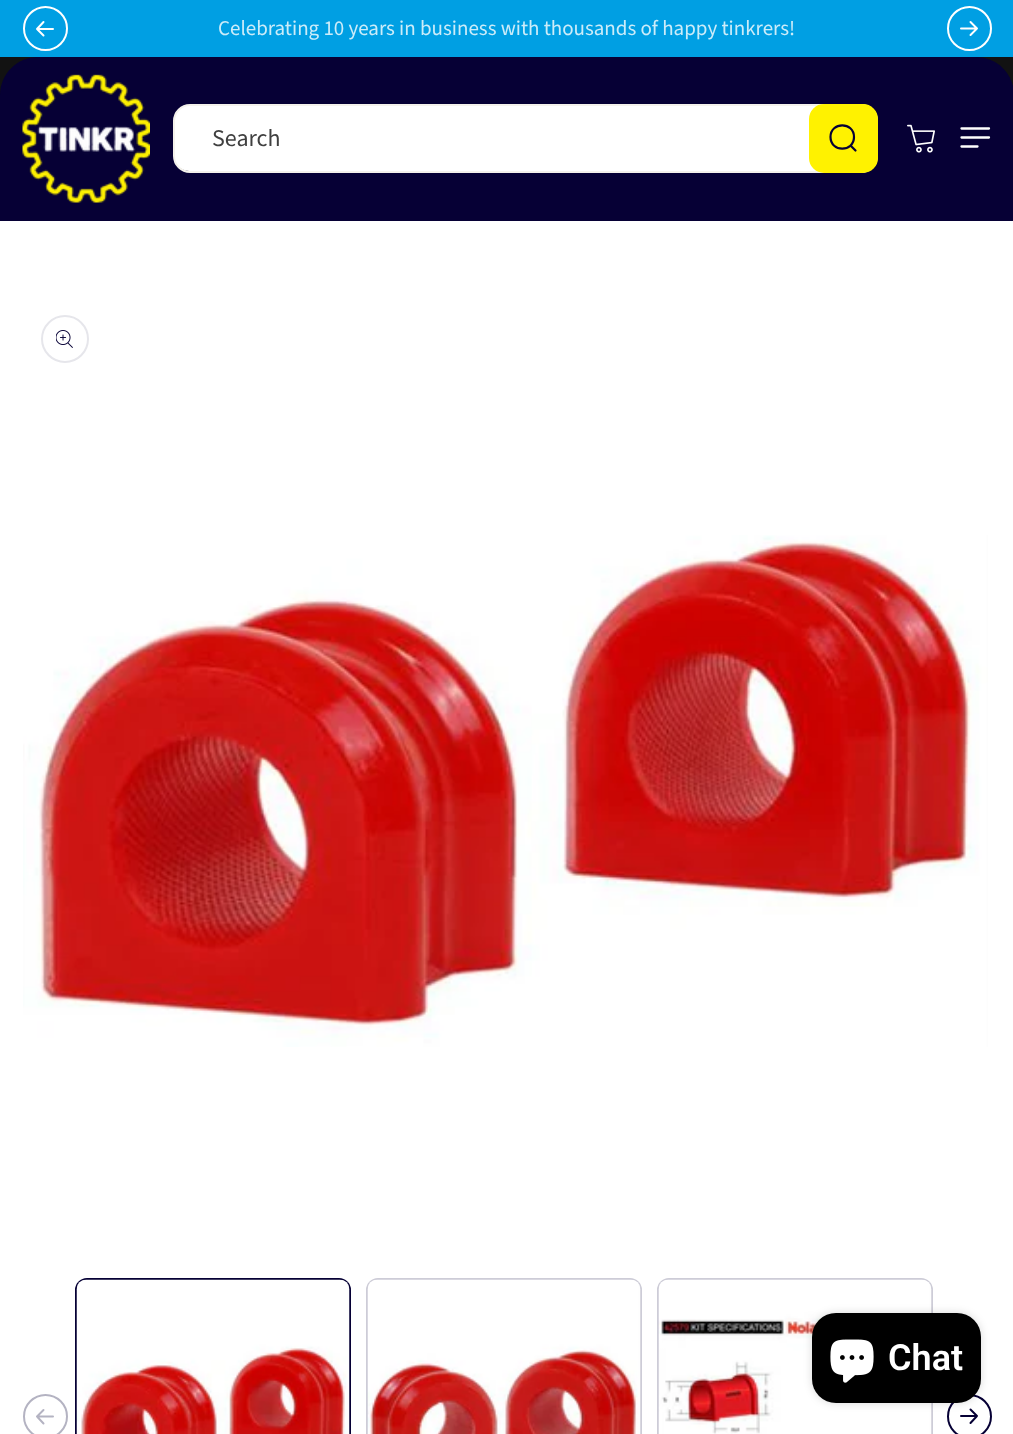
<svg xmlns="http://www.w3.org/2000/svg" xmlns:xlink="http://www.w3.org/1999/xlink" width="1013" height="1434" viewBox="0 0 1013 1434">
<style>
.cls-1{font:21px Source Sans Pro;fill:#ccecf9}
.cls-2{font:24px Source Sans Pro;fill:#404040}
.cls-3{font:600 36px Roboto;fill:#ffffff}
</style>
<rect width="100%" height="100%" fill="#ffffff"/>
<rect fill="#009fe3" x="0" y="0" width="1013" height="57"/>
<circle fill="none" stroke="#ffffff" stroke-width="2" cx="45.5" cy="28.5" r="21.5"/>
<path fill="none" stroke="#ffffff" stroke-width="2" stroke-linecap="round" stroke-linejoin="round" d="M43.5 22L37 29M37 29L43.5 35.5M37 29H53"/>
<circle fill="none" stroke="#ffffff" stroke-width="2" cx="969.5" cy="28.5" r="21.5"/>
<path fill="none" stroke="#ffffff" stroke-width="2" stroke-linecap="round" stroke-linejoin="round" d="M970.5 35L977 28.5M977 28.5L970.5 22M977 28.5H961"/>
<rect fill="#121212" x="0" y="57" width="1013" height="38"/>
<path fill="#060035" d="M38 57H976C997 57 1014 74 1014 95V221H0V95C0 74 17 57 38 57Z"/>
<image xlink:href="image0.png" x="22" y="74" width="128" height="129"/>
<rect fill="#ffffff" x="174" y="105" width="702" height="66" rx="15"/>
<rect fill="none" stroke="#f4f2ec" stroke-width="2" x="174" y="105" width="703" height="67" rx="16"/>
<rect fill="#fff200" x="809" y="104" width="69" height="69" rx="15"/>
<path fill="none" stroke="#060035" stroke-width="2.2" stroke-linecap="round" d="M850.5 145.5L855.5 150.5M854 137C854 152.5 830.5 152.5 830.5 137C830.5 121.5 854 121.5 854 137Z"/>
<image xlink:href="image1.png" x="907" y="124" width="28" height="29"/>
<path fill="none" stroke="#ffffff" stroke-width="2.3" stroke-linecap="round" d="M977.5 146.5H961.5M989 137.5H961.5M989 128.5H961.5"/>
<circle fill="none" stroke="#e6e6eb" stroke-width="2" cx="65" cy="339" r="23"/>
<image xlink:href="image2.png" x="56" y="330" width="17" height="18"/>
<image xlink:href="image3.png" x="23" y="535" width="965" height="512"/>
<circle fill="none" stroke="#b4b3c2" stroke-width="2" cx="45.5" cy="1416.5" r="21.5"/>
<path fill="none" stroke="#b4b3c2" stroke-width="2" stroke-linecap="round" stroke-linejoin="round" d="M43.5 1410L37 1416.5M37 1416.5L43.5 1423.5M37 1416.5H53"/>
<rect fill="none" stroke="#060035" stroke-width="2" x="76" y="1279" width="274" height="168" rx="11"/>
<image xlink:href="image4.png" x="76" y="1279" width="274" height="155"/>
<rect fill="none" stroke="#cdccd7" stroke-width="2" x="367" y="1279" width="274" height="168" rx="11"/>
<image xlink:href="image5.png" x="367" y="1279" width="274" height="155"/>
<rect fill="none" stroke="#cdccd7" stroke-width="2" x="658" y="1279" width="274" height="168" rx="11"/>
<image xlink:href="image6.png" x="658" y="1279" width="274" height="155"/>
<circle fill="none" stroke="#060035" stroke-width="2" cx="969.5" cy="1416.5" r="21.5"/>
<path fill="none" stroke="#060035" stroke-width="2" stroke-linecap="round" stroke-linejoin="round" d="M970.5 1423L977 1416M977 1416L970.5 1409.5M977 1416H961"/>
<rect fill="#000000" fill-opacity="0.15" filter="blur(4px)" x="812" y="1313" width="169" height="90" rx="24"/>
<rect fill="#000000" x="812" y="1313" width="169" height="90" rx="24"/>
<image xlink:href="image7.png" x="830" y="1339" width="44" height="44"/>
<text class="cls-1" x="218" y="35">Celebrating 10 years in business with thousands of happy tinkrers!</text>
<text class="cls-2" x="212" y="146">Search</text>
<text class="cls-3" x="888" y="1370">Chat</text>
</svg>
